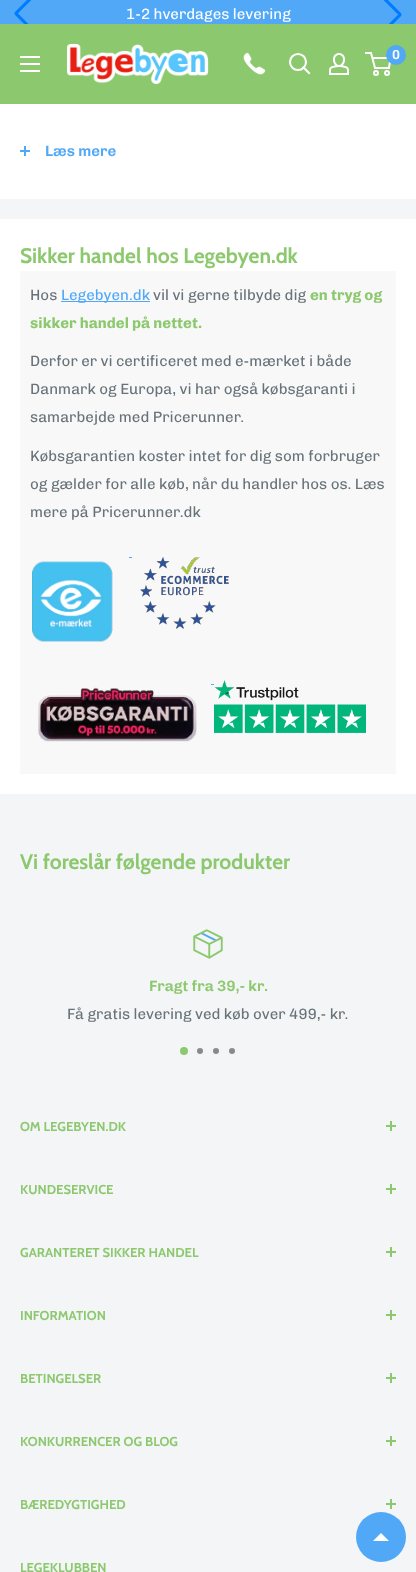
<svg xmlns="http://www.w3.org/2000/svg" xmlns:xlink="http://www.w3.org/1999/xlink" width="416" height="1572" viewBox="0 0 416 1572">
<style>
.cls-1{font:15px Chivo;fill:#ffffff}
.cls-2{font:600 13px Chivo;fill:#ffffff}
.cls-3{font:600 15px Chivo;fill:#50a8f7}
.cls-4{font:bold 21px Cabin;fill:#8cc86e}
.cls-5{font:15px Chivo;fill:#677279}
.cls-6{font:15px Chivo;fill:#50a8f7}
.cls-7{font:bold 15px Chivo;fill:#8cc86e}
.cls-8{font:600 15px Chivo;fill:#8cc86e}
.cls-9{font:bold 13px Cabin;fill:#8cc86e}
</style>
<rect width="100%" height="100%" fill="#f3f5f6"/>
<rect fill="#50a8f7" x="0" y="0" width="416" height="24"/>
<image xlink:href="image0.png" x="14" y="0" width="18" height="24"/>
<image xlink:href="image1.png" x="383" y="0" width="19" height="24"/>
<rect fill="#8cc86e" x="0" y="24" width="416" height="80"/>
<image xlink:href="image2.png" x="66" y="43" width="143" height="41"/>
<image xlink:href="image3.png" x="243" y="52" width="23" height="23"/>
<path fill="none" stroke="#ffffff" stroke-width="2.1" stroke-linecap="square" d="M309 73L303.5 67.5"/>
<circle fill="none" stroke="#ffffff" stroke-width="2.1" cx="298" cy="62" r="8"/>
<image xlink:href="image4.png" x="329" y="53" width="20" height="22"/>
<circle fill="none" stroke="#ffffff" stroke-width="2" cx="376" cy="73" r="2"/>
<circle fill="none" stroke="#ffffff" stroke-width="2" cx="387" cy="73" r="2"/>
<path fill="none" stroke="#ffffff" stroke-width="2" d="M372.5 58H390.5L389 68H375L371 53H365"/>
<circle fill="#50a8f7" cx="396" cy="55" r="10"/>
<image xlink:href="image5.png" x="20" y="56" width="20" height="16"/>
<circle fill="#50a8f7" cx="381" cy="1537" r="25"/>
<path fill="#ffffff" d="M389 1541H373L381 1533Z"/>
<rect fill="#ffffff" x="0" y="104" width="416" height="95"/>
<rect fill="#50a8f7" x="24" y="146" width="2" height="10"/>
<rect fill="#50a8f7" x="20" y="150" width="10" height="2"/>
<rect fill="#ffffff" x="0" y="219" width="416" height="575"/>
<rect fill="#f8f8f8" x="20" y="271" width="376" height="503"/>
<rect fill="#50a8f7" x="61" y="301" width="89" height="1"/>
<image xlink:href="image6.png" x="32" y="561" width="81" height="81"/>
<rect fill="#50a8f7" x="129" y="557" width="3" height="1"/>
<image xlink:href="image7.png" x="140" y="557" width="89" height="72"/>
<rect fill="#50a8f7" x="211" y="684" width="3" height="1"/>
<image xlink:href="image8.png" x="214" y="680" width="152" height="53"/>
<image xlink:href="image9.png" x="38" y="687" width="159" height="55"/>
<image xlink:href="image10.png" x="193" y="929" width="30" height="30"/>
<circle fill="#8cc86e" cx="184" cy="1051" r="4"/>
<circle fill="#838c92" cx="200" cy="1051" r="3"/>
<circle fill="#838c92" cx="216" cy="1051" r="3"/>
<circle fill="#838c92" cx="232" cy="1051" r="3"/>
<rect fill="#8cc86e" x="390" y="1121" width="2" height="10"/>
<rect fill="#8cc86e" x="386" y="1125" width="10" height="2"/>
<rect fill="#8cc86e" x="390" y="1184" width="2" height="10"/>
<rect fill="#8cc86e" x="386" y="1188" width="10" height="2"/>
<rect fill="#8cc86e" x="390" y="1247" width="2" height="10"/>
<rect fill="#8cc86e" x="386" y="1251" width="10" height="2"/>
<rect fill="#8cc86e" x="390" y="1310" width="2" height="10"/>
<rect fill="#8cc86e" x="386" y="1314" width="10" height="2"/>
<rect fill="#8cc86e" x="390" y="1373" width="2" height="10"/>
<rect fill="#8cc86e" x="386" y="1377" width="10" height="2"/>
<rect fill="#8cc86e" x="390" y="1436" width="2" height="10"/>
<rect fill="#8cc86e" x="386" y="1440" width="10" height="2"/>
<rect fill="#8cc86e" x="390" y="1499" width="2" height="10"/>
<rect fill="#8cc86e" x="386" y="1503" width="10" height="2"/>
<text class="cls-1" x="126" y="19">1-2 hverdages levering</text>
<text class="cls-2" x="392" y="59">0</text>
<text class="cls-3" x="45" y="156">Læs mere</text>
<text class="cls-4" x="20" y="263">Sikker handel hos Legebyen.dk</text>
<text class="cls-5" x="30" y="300">Hos</text>
<text class="cls-6" x="61" y="300">Legebyen.dk</text>
<text class="cls-5" x="153" y="300">vil vi gerne tilbyde dig</text>
<text class="cls-7" x="310" y="300">en tryg og</text>
<text class="cls-7" x="30" y="328">sikker handel på nettet.</text>
<text class="cls-5"><tspan x="30" y="366">Derfor er vi certificeret med e-mærket i både</tspan><tspan x="30" y="394">Danmark og Europa, vi har også købsgaranti i</tspan><tspan x="30" y="422">samarbejde med Pricerunner.</tspan></text>
<text class="cls-5"><tspan x="30" y="461">Købsgarantien koster intet for dig som forbruger</tspan><tspan x="30" y="489">og gælder for alle køb, når du handler hos os. Læs</tspan><tspan x="30" y="517">mere på Pricerunner.dk</tspan></text>
<text class="cls-4" x="20" y="869">Vi foreslår følgende produkter</text>
<text class="cls-8" x="149" y="991">Fragt fra 39,- kr.</text>
<text class="cls-5" x="67" y="1019">Få gratis levering ved køb over 499,- kr.</text>
<text class="cls-9" x="20" y="1131">OM LEGEBYEN.DK</text>
<text class="cls-9" x="20" y="1194">KUNDESERVICE</text>
<text class="cls-9" x="20" y="1257">GARANTERET SIKKER HANDEL</text>
<text class="cls-9" x="20" y="1320">INFORMATION</text>
<text class="cls-9" x="20" y="1383">BETINGELSER</text>
<text class="cls-9" x="20" y="1446">KONKURRENCER OG BLOG</text>
<text class="cls-9" x="20" y="1509">BÆREDYGTIGHED</text>
<text class="cls-9" x="20" y="1572">LEGEKLUBBEN</text>
</svg>
